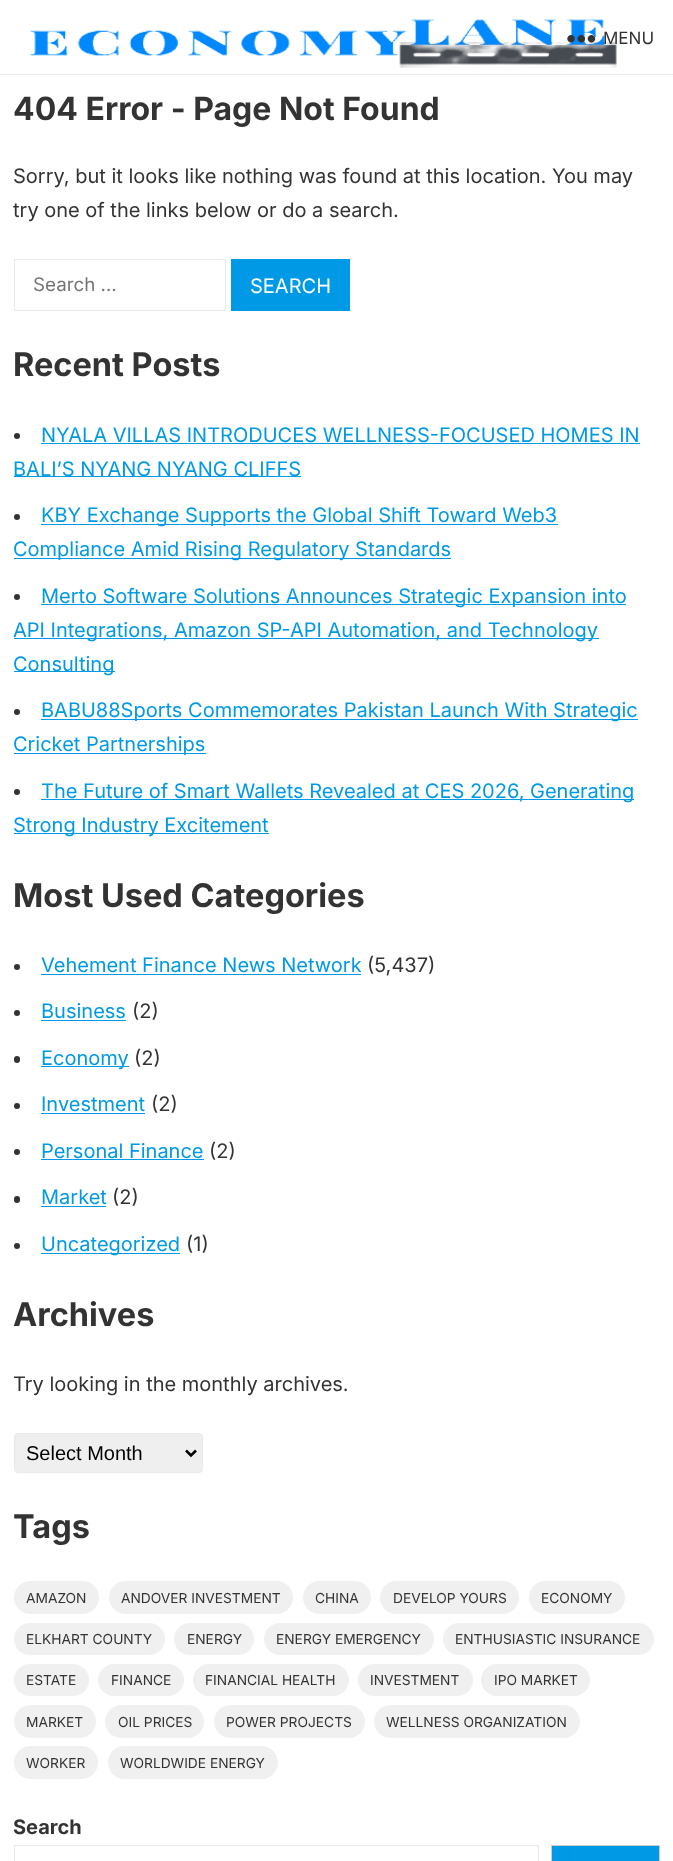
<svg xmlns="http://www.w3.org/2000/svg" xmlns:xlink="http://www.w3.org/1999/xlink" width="673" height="1861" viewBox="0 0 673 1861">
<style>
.cls-1{font:17px Inter;fill:#333333}
.cls-2{font:bold 32px Inter;fill:#333333}
.cls-3{font:20px Inter;fill:#333333}
.cls-4{font:18.75px Inter;fill:#757575}
.cls-5{font:20px Inter;fill:#ffffff}
.cls-6{font:bold 32.5px Inter;fill:#333333}
.cls-7{font:20px Inter;fill:#0099e5}
.cls-8{font:20px Liberation Sans;fill:#000000}
.cls-9{font:13.75px Inter;fill:#333333}
.cls-10{font:bold 20px Inter;fill:#333333}
</style>
<rect width="100%" height="100%" fill="#ffffff"/>
<rect fill="#e9e9e9" x="0" y="74" width="673" height="1"/>
<image xlink:href="image0.png" x="30" y="19" width="587" height="49"/>
<image xlink:href="image1.png" x="567" y="35" width="29" height="8"/>
<rect fill="none" stroke="#e9e9e9" x="14.5" y="259.5" width="211" height="51"/>
<rect fill="#0099e5" x="231" y="259" width="119" height="52"/>
<circle fill="#333333" cx="17" cy="436" r="3"/>
<rect fill="#0099e5" x="41" y="443" width="599" height="1"/>
<rect fill="#0099e5" x="14" y="476" width="287" height="1"/>
<circle fill="#333333" cx="17" cy="517" r="3"/>
<rect fill="#0099e5" x="41" y="524" width="517" height="1"/>
<rect fill="#0099e5" x="14" y="558" width="437" height="1"/>
<circle fill="#333333" cx="17" cy="597" r="3"/>
<rect fill="#0099e5" x="41" y="604" width="585" height="1"/>
<rect fill="#0099e5" x="14" y="638" width="585" height="1"/>
<rect fill="#0099e5" x="14" y="671" width="101" height="1"/>
<circle fill="#333333" cx="17" cy="712" r="3"/>
<rect fill="#0099e5" x="41" y="719" width="597" height="1"/>
<rect fill="#0099e5" x="14" y="753" width="192" height="1"/>
<circle fill="#333333" cx="17" cy="792" r="3"/>
<rect fill="#0099e5" x="41" y="799" width="593" height="1"/>
<rect fill="#0099e5" x="14" y="833" width="255" height="1"/>
<circle fill="#333333" cx="17" cy="967" r="3"/>
<rect fill="#0099e5" x="41" y="974" width="320" height="1"/>
<circle fill="#333333" cx="17" cy="1013" r="3"/>
<rect fill="#0099e5" x="41" y="1020" width="85" height="1"/>
<rect fill="#333333" x="14" y="1056" width="6" height="7" rx="3"/>
<rect fill="#0099e5" x="41" y="1066" width="88" height="1"/>
<circle fill="#333333" cx="17" cy="1106" r="3"/>
<rect fill="#0099e5" x="41" y="1113" width="104" height="1"/>
<circle fill="#333333" cx="17" cy="1152" r="3"/>
<rect fill="#0099e5" x="41" y="1159" width="163" height="1"/>
<rect fill="#333333" x="14" y="1196" width="6" height="7" rx="3"/>
<rect fill="#0099e5" x="41" y="1206" width="65" height="1"/>
<circle fill="#333333" cx="17" cy="1246" r="3"/>
<rect fill="#0099e5" x="41" y="1253" width="139" height="1"/>
<rect fill="#efefef" stroke="#e9e9e9" x="14.5" y="1433.5" width="188" height="39" rx="3.5"/>
<path fill="none" stroke="#000000" stroke-width="2.5" d="M186 1450.5L191 1455.5L196 1450.5"/>
<rect fill="#f0f0f0" x="14" y="1581" width="85" height="33" rx="16.5"/>
<rect fill="#f0f0f0" x="109" y="1581" width="184" height="33" rx="16.5"/>
<rect fill="#f0f0f0" x="303" y="1581" width="68" height="33" rx="16.5"/>
<rect fill="#f0f0f0" x="380" y="1581" width="139" height="33" rx="16.5"/>
<rect fill="#f0f0f0" x="529" y="1581" width="96" height="33" rx="16.5"/>
<rect fill="#f0f0f0" x="14" y="1623" width="151" height="32" rx="16"/>
<rect fill="#f0f0f0" x="174" y="1623" width="80" height="32" rx="16"/>
<rect fill="#f0f0f0" x="264" y="1623" width="170" height="32" rx="16"/>
<rect fill="#f0f0f0" x="443" y="1623" width="211" height="32" rx="16"/>
<rect fill="#f0f0f0" x="14" y="1664" width="75" height="32" rx="16"/>
<rect fill="#f0f0f0" x="98" y="1664" width="86" height="32" rx="16"/>
<rect fill="#f0f0f0" x="193" y="1664" width="156" height="32" rx="16"/>
<rect fill="#f0f0f0" x="358" y="1664" width="115" height="32" rx="16"/>
<rect fill="#f0f0f0" x="481" y="1664" width="109" height="32" rx="16"/>
<rect fill="#f0f0f0" x="14" y="1705" width="82" height="33" rx="16.5"/>
<rect fill="#f0f0f0" x="105" y="1705" width="99" height="33" rx="16.5"/>
<rect fill="#f0f0f0" x="214" y="1705" width="151" height="33" rx="16.5"/>
<rect fill="#f0f0f0" x="374" y="1705" width="206" height="33" rx="16.5"/>
<rect fill="#f0f0f0" x="14" y="1746" width="84" height="33" rx="16.5"/>
<rect fill="#f0f0f0" x="108" y="1746" width="170" height="33" rx="16.5"/>
<rect fill="none" stroke="#e9e9e9" x="14.5" y="1845.5" width="524" height="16"/>
<rect fill="#0099e5" stroke="#cccccc" x="551.5" y="1845.5" width="108" height="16"/>
<text class="cls-1" x="603" y="44">MENU</text>
<text class="cls-2" x="13" y="120">404 Error - Page Not Found</text>
<text class="cls-3"><tspan x="13" y="183">Sorry, but it looks like nothing was found at this location. You may</tspan><tspan x="13" y="217">try one of the links below or do a search.</tspan></text>
<text class="cls-4" x="33" y="291">Search …</text>
<text class="cls-5" x="250" y="293">SEARCH</text>
<text class="cls-6" x="13" y="376">Recent Posts</text>
<text class="cls-7" x="41" y="442">NYALA VILLAS INTRODUCES WELLNESS-FOCUSED HOMES IN</text>
<text class="cls-7" x="13" y="476">BALI’S NYANG NYANG CLIFFS</text>
<text class="cls-7" x="41" y="522">KBY Exchange Supports the Global Shift Toward Web3</text>
<text class="cls-7" x="13" y="556">Compliance Amid Rising Regulatory Standards</text>
<text class="cls-7" x="41" y="603">Merto Software Solutions Announces Strategic Expansion into</text>
<text class="cls-7"><tspan x="13" y="637">API Integrations, Amazon SP-API Automation, and Technology</tspan><tspan x="13" y="671">Consulting</tspan></text>
<text class="cls-7" x="41" y="717">BABU88Sports Commemorates Pakistan Launch With Strategic</text>
<text class="cls-7" x="13" y="751">Cricket Partnerships</text>
<text class="cls-7" x="41" y="798">The Future of Smart Wallets Revealed at CES 2026, Generating</text>
<text class="cls-7" x="13" y="832">Strong Industry Excitement</text>
<text class="cls-6" x="13" y="907">Most Used Categories</text>
<text class="cls-7" x="41" y="972">Vehement Finance News Network</text>
<text class="cls-3" x="367" y="972">(5,437)</text>
<text class="cls-7" x="41" y="1018">Business</text>
<text class="cls-3" x="132" y="1018">(2)</text>
<text class="cls-7" x="41" y="1065">Economy</text>
<text class="cls-3" x="134" y="1065">(2)</text>
<text class="cls-7" x="41" y="1111">Investment</text>
<text class="cls-3" x="151" y="1111">(2)</text>
<text class="cls-7" x="41" y="1158">Personal Finance</text>
<text class="cls-3" x="209" y="1158">(2)</text>
<text class="cls-7" x="41" y="1204">Market</text>
<text class="cls-3" x="112" y="1204">(2)</text>
<text class="cls-7" x="41" y="1251">Uncategorized</text>
<text class="cls-3" x="186" y="1251">(1)</text>
<text class="cls-6" x="13" y="1326">Archives</text>
<text class="cls-3" x="13" y="1391">Try looking in the monthly archives.</text>
<text class="cls-8" x="26" y="1460">Select Month</text>
<text class="cls-6" x="13" y="1538">Tags</text>
<text class="cls-9" x="26" y="1603">AMAZON</text>
<text class="cls-9" x="121" y="1603">ANDOVER INVESTMENT</text>
<text class="cls-9" x="315" y="1603">CHINA</text>
<text class="cls-9" x="393" y="1603">DEVELOP YOURS</text>
<text class="cls-9" x="541" y="1603">ECONOMY</text>
<text class="cls-9" x="26" y="1644">ELKHART COUNTY</text>
<text class="cls-9" x="187" y="1644">ENERGY</text>
<text class="cls-9" x="276" y="1644">ENERGY EMERGENCY</text>
<text class="cls-9" x="455" y="1644">ENTHUSIASTIC INSURANCE</text>
<text class="cls-9" x="26" y="1685">ESTATE</text>
<text class="cls-9" x="111" y="1685">FINANCE</text>
<text class="cls-9" x="205" y="1685">FINANCIAL HEALTH</text>
<text class="cls-9" x="370" y="1685">INVESTMENT</text>
<text class="cls-9" x="494" y="1685">IPO MARKET</text>
<text class="cls-9" x="26" y="1727">MARKET</text>
<text class="cls-9" x="118" y="1727">OIL PRICES</text>
<text class="cls-9" x="226" y="1727">POWER PROJECTS</text>
<text class="cls-9" x="386" y="1727">WELLNESS ORGANIZATION</text>
<text class="cls-9" x="26" y="1768">WORKER</text>
<text class="cls-9" x="120" y="1768">WORLDWIDE ENERGY</text>
<text class="cls-10" x="13" y="1834">Search</text>
</svg>
